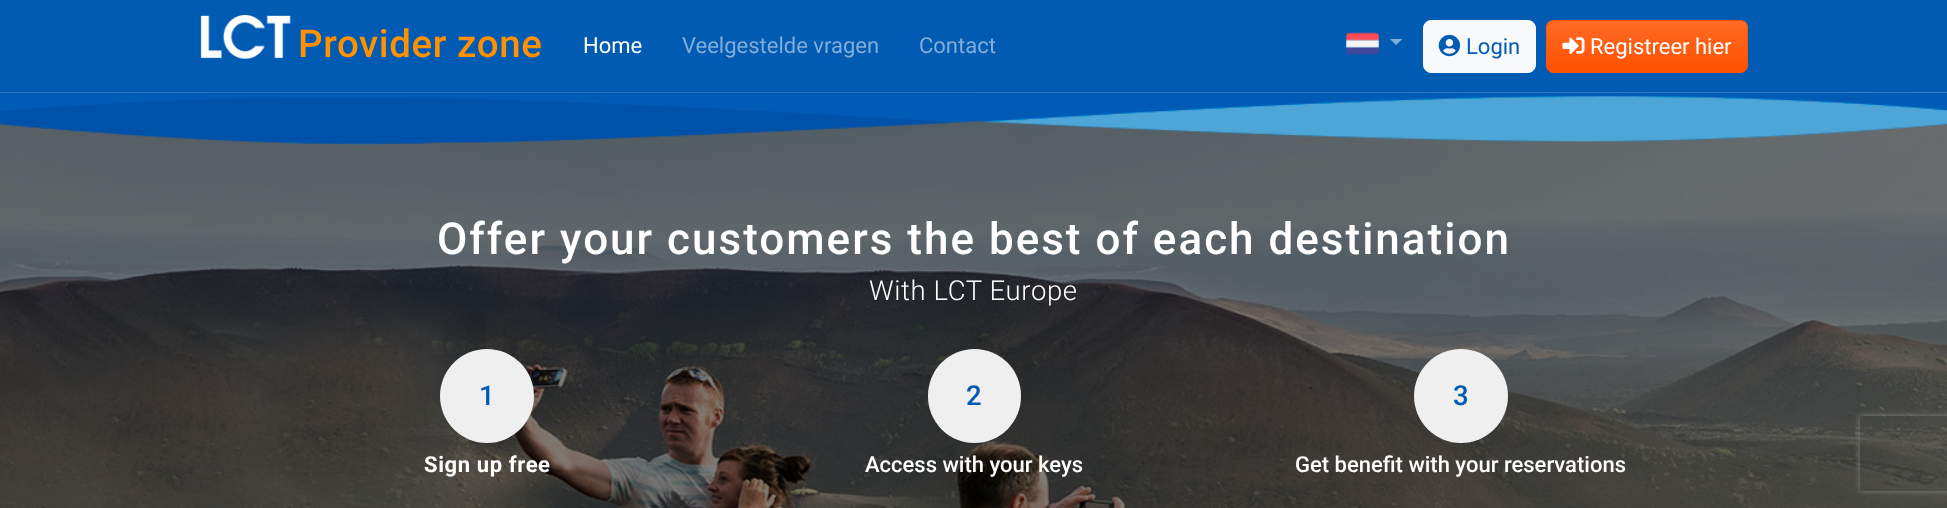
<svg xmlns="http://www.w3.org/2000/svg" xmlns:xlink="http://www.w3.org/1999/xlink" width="1947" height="508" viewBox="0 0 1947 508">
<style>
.cls-1{font:500 38.5px Roboto;letter-spacing:0.6px;fill:#ff9000}
.cls-2{font:22px Roboto;fill:#ffffff}
.cls-3{font:22px Roboto;fill:#80add9}
.cls-4{font:22px Roboto;fill:#015bb3}
.cls-5{font:500 44px Roboto;letter-spacing:2px;fill:#ffffff}
.cls-6{font:300 27.5px Roboto;letter-spacing:0.6px;fill:#ffffff}
.cls-7{font:500 27.5px Roboto;fill:#015bb3}
.cls-8{font:bold 22px Roboto;letter-spacing:0.6px;fill:#ffffff}
.cls-9{font:500 22px Roboto;fill:#ffffff}
</style>
<defs>
<clipPath id="clip1"><rect x="1546" y="20" width="202" height="53" rx="8"/></clipPath>
<linearGradient id="g1" gradientUnits="userSpaceOnUse" x1="1647" y1="21" x2="1647" y2="71"><stop offset="0" stop-color="#ff6b26"/><stop offset="1" stop-color="#ff5100"/></linearGradient>
<clipPath id="clip2"><path d="M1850 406H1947V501H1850ZM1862.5 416H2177.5C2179 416 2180 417 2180 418.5V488.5C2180 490 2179 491 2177.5 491H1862.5C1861 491 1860 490 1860 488.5V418.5C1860 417 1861 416 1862.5 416Z" clip-rule="evenodd"/></clipPath>
</defs>
<rect width="100%" height="100%" fill="#015bb3"/>
<image xlink:href="image0.png" x="200" y="15" width="91" height="44"/>
<image xlink:href="image1.png" x="1346" y="32" width="33" height="23"/>
<path fill="#80add9" d="M1390 39H1402.5L1396 45Z"/>
<rect fill="#f8f9fa" stroke="#f8f9fa" x="1423.5" y="20.5" width="112" height="52" rx="7.5"/>
<image xlink:href="image2.png" x="1438" y="34" width="23" height="23"/>
<rect fill="#ff5100" x="1546" y="20" width="202" height="53" rx="8"/>
<g clip-path="url(#clip1)">
<rect fill="url(#g1)" x="1546" y="21" width="202" height="50"/>
</g>
<rect fill="none" stroke="#ff5100" x="1546.5" y="20.5" width="201" height="52" rx="7.5"/>
<image xlink:href="image3.png" x="1562" y="37" width="23" height="18"/>
<image xlink:href="image4.png" x="0" y="92" width="1947" height="416"/>
<image xlink:href="image5.png" x="0" y="92" width="1947" height="53"/>
<circle fill="#efefef" cx="487" cy="396" r="47"/>
<rect fill="#efefef" x="928" y="349" width="93" height="94" rx="46.5"/>
<circle fill="#efefef" cx="1461" cy="396" r="47"/>
<g clip-path="url(#clip2)">
<rect fill="#808080" filter="blur(3px)" x="1860" y="416" width="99" height="75" rx="2.5"/>
</g>
<text class="cls-1" x="298" y="57">Provider zone</text>
<text class="cls-2" x="583" y="53">Home</text>
<text class="cls-3" x="682" y="53">Veelgestelde vragen</text>
<text class="cls-3" x="919" y="53">Contact</text>
<text class="cls-4" x="1466" y="54">Login</text>
<text class="cls-2" x="1590" y="54">Registreer hier</text>
<text class="cls-5" x="437" y="254">Offer your customers the best of each destination</text>
<text class="cls-6" x="869" y="300">With LCT Europe</text>
<text class="cls-7" x="479" y="405">1</text>
<text class="cls-8" x="424" y="472">Sign up free</text>
<text class="cls-7" x="966" y="405">2</text>
<text class="cls-9" x="865" y="472">Access with your keys</text>
<text class="cls-7" x="1453" y="405">3</text>
<text class="cls-9" x="1295" y="472">Get benefit with your reservations</text>
</svg>
